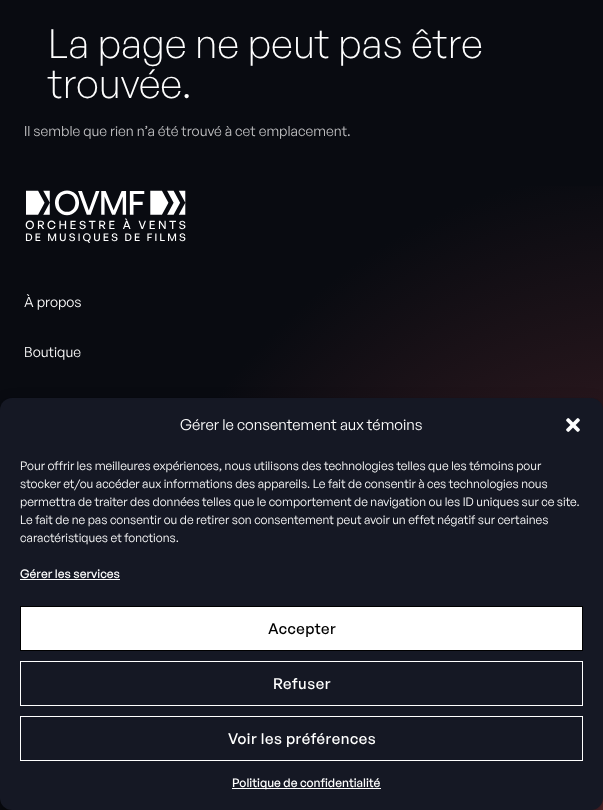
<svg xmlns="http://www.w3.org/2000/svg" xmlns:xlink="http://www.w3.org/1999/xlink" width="603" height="810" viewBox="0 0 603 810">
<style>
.cls-1{font:300 40px General Sans;fill:#ffffff}
.cls-2{font:14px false;fill:#c2c2c4}
.cls-3{font:14px false;fill:#ffffff}
.cls-4{font:15px false;fill:#ffffff}
.cls-5{font:12px false;fill:#ffffff}
.cls-6{font:500 12px General Sans;fill:#ffffff}
.cls-7{font:500 15px General Sans;letter-spacing:0.5px;fill:#000000}
.cls-8{font:500 15px General Sans;letter-spacing:0.5px;fill:#ffffff}
</style>
<defs>
<radialGradient id="g1" gradientUnits="userSpaceOnUse" cx="0" cy="0" r="1" gradientTransform="matrix(853 0 0 987 663 855)"><stop offset="0" stop-color="#5e2b31"/><stop offset="0.7" stop-color="#090b11"/></radialGradient>
</defs>
<rect width="100%" height="100%" fill="#090b11"/>
<rect fill="url(#g1)" x="85" y="186" width="518" height="624"/>
<image xlink:href="image0.png" x="25" y="190" width="161" height="53"/>
<rect fill="#000000" fill-opacity="0.23" filter="blur(3px)" x="0" y="404" width="603" height="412" rx="12"/>
<rect fill="#000000" fill-opacity="0.19" filter="blur(10px)" x="0" y="408" width="603" height="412" rx="12"/>
<rect fill="#808080" filter="blur(2.5px)" x="533" y="736" width="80" height="60" rx="2"/>
<rect fill="#151824" x="0" y="398" width="603" height="412" rx="12"/>
<image xlink:href="image1.png" x="566" y="418" width="14" height="14"/>
<rect fill="#ffffff" x="20" y="579" width="100" height="1"/>
<rect fill="#ffffff" stroke="#000000" x="20.5" y="606.5" width="562" height="44"/>
<rect fill="none" stroke="#ffffff" x="20.5" y="661.5" width="562" height="44"/>
<rect fill="none" stroke="#ffffff" x="20.5" y="716.5" width="562" height="44"/>
<rect fill="#ffffff" x="232" y="788" width="149" height="1"/>
<text class="cls-1"><tspan x="48" y="58">La page ne peut pas être</tspan><tspan x="48" y="98">trouvée.</tspan></text>
<text class="cls-2" x="24" y="136">Il semble que rien n’a été trouvé à cet emplacement.</text>
<text class="cls-3" x="24" y="307">À propos</text>
<text class="cls-3" x="24" y="357">Boutique</text>
<text class="cls-4" x="180" y="430">Gérer le consentement aux témoins</text>
<text class="cls-5"><tspan x="20" y="470">Pour offrir les meilleures expériences, nous utilisons des technologies telles que les témoins pour</tspan><tspan x="20" y="488">stocker et/ou accéder aux informations des appareils. Le fait de consentir à ces technologies nous</tspan><tspan x="20" y="506">permettra de traiter des données telles que le comportement de navigation ou les ID uniques sur ce site.</tspan><tspan x="20" y="524">Le fait de ne pas consentir ou de retirer son consentement peut avoir un effet négatif sur certaines</tspan><tspan x="20" y="542">caractéristiques et fonctions.</tspan></text>
<text class="cls-6" x="20" y="578">Gérer les services</text>
<text class="cls-7" x="268" y="634">Accepter</text>
<text class="cls-8" x="273" y="689">Refuser</text>
<text class="cls-8" x="228" y="744">Voir les préférences</text>
<text class="cls-6" x="232" y="787">Politique de confidentialité</text>
</svg>
